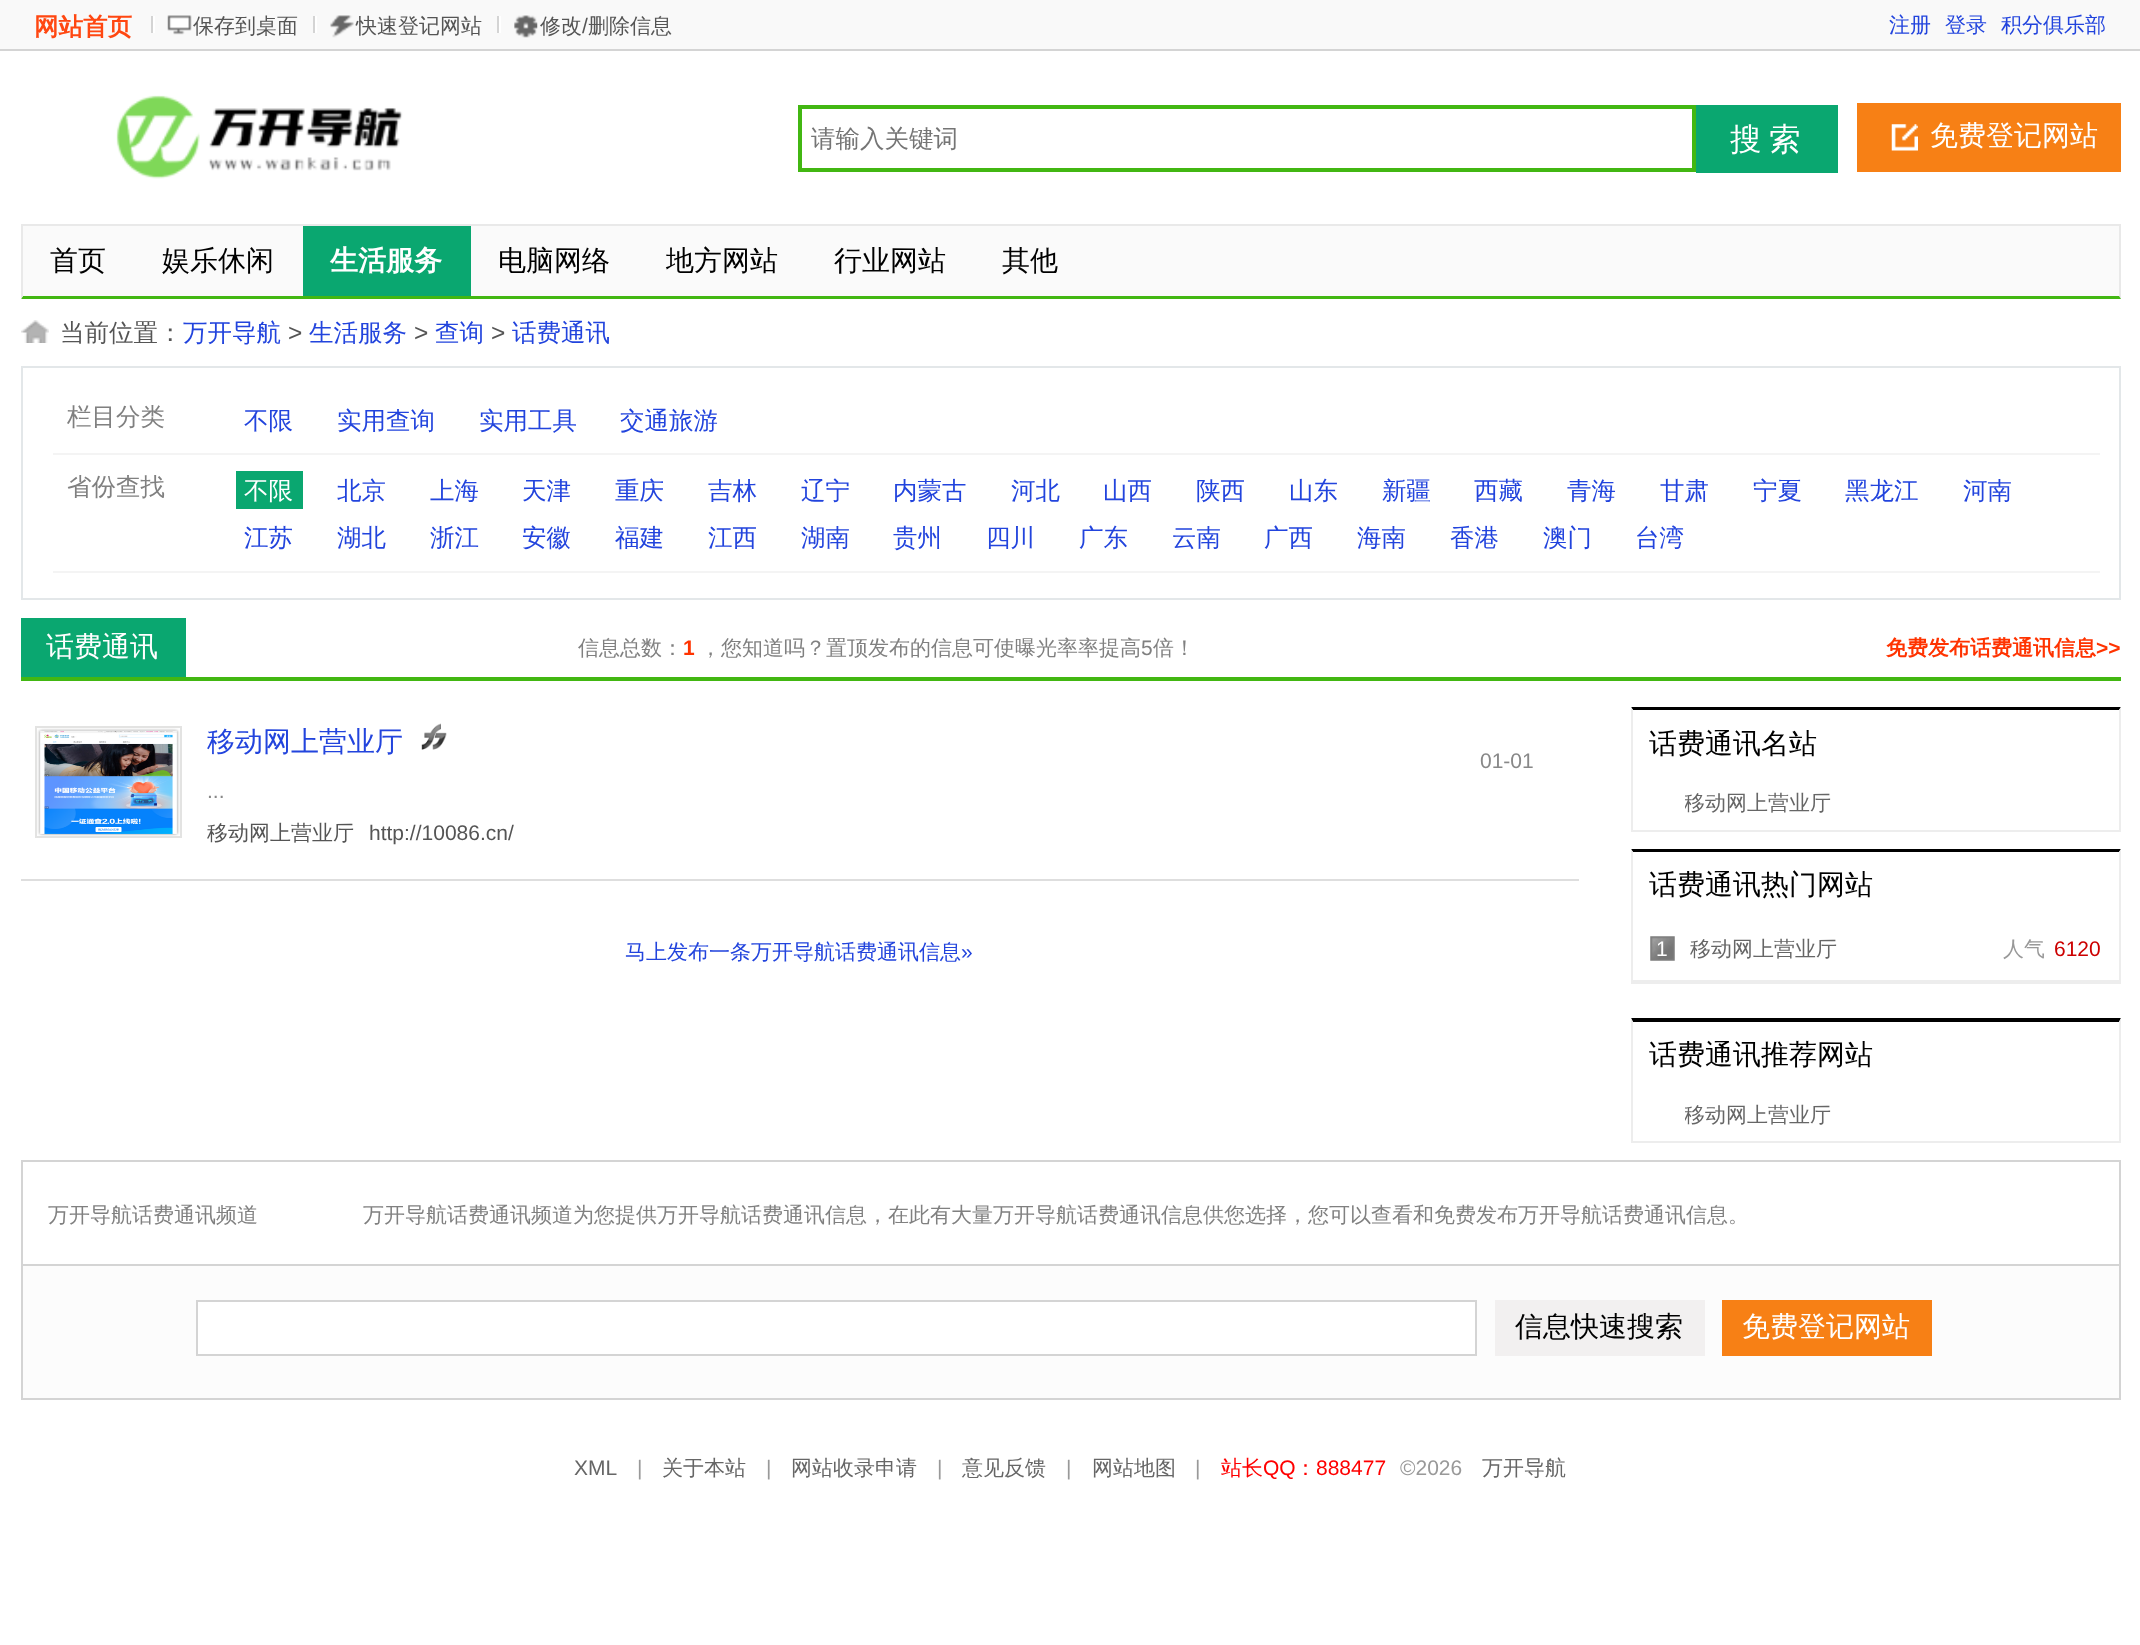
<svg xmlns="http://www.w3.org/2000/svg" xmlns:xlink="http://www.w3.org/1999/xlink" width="2140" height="1645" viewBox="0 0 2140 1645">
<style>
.cls-1{font:bold 24.5px WenQuanYi Zen Hei;fill:#ff4711}
.cls-2{font:500 21px WenQuanYi Zen Hei;fill:#555555}
.cls-3{font:21px Liberation Sans;fill:#555555}
.cls-4{font:500 21px WenQuanYi Zen Hei;fill:#2244dd}
.cls-5{font:500 24.5px WenQuanYi Zen Hei;fill:#757575}
.cls-6{font:500 31.5px WenQuanYi Zen Hei;fill:#ffffff}
.cls-7{font:500 28px WenQuanYi Zen Hei;fill:#ffffff}
.cls-8{font:500 28px WenQuanYi Zen Hei;fill:#000000}
.cls-9{font:bold 28px WenQuanYi Zen Hei;fill:#ffffff}
.cls-10{font:500 24.5px WenQuanYi Zen Hei;fill:#555555}
.cls-11{font:500 24.5px WenQuanYi Zen Hei;fill:#2244dd}
.cls-12{font:24.5px Liberation Sans;fill:#555555}
.cls-13{font:500 24.5px WenQuanYi Zen Hei;fill:#808080}
.cls-14{font:500 24.5px WenQuanYi Zen Hei;fill:#ffffff}
.cls-15{font:500 21px WenQuanYi Zen Hei;fill:#808080}
.cls-16{font:bold 21px Liberation Sans;fill:#ff3300}
.cls-17{font:21px Liberation Sans;fill:#808080}
.cls-18{font:bold 21px WenQuanYi Zen Hei;fill:#ff3300}
.cls-19{font:500 28px WenQuanYi Zen Hei;fill:#2244dd}
.cls-20{font:21px Liberation Sans;fill:#888888}
.cls-21{font:21px Liberation Sans;fill:#2244dd}
.cls-22{font:500 21px WenQuanYi Zen Hei;fill:#666666}
.cls-23{font:21px Liberation Sans;fill:#ffffff}
.cls-24{font:500 21px WenQuanYi Zen Hei;fill:#999999}
.cls-25{font:21px Liberation Sans;fill:#cc0000}
.cls-26{font:21px Liberation Sans;fill:#666666}
.cls-27{font:21px Liberation Sans;fill:#999999}
.cls-28{font:500 21px WenQuanYi Zen Hei;fill:#ff0000}
.cls-29{font:21px Liberation Sans;fill:#ff0000}
</style>
<defs>
<clipPath id="clip1"><rect x="1685" y="777" width="175" height="53"/></clipPath>
<clipPath id="clip2"><rect x="1685" y="1089" width="175" height="52"/></clipPath>
</defs>
<rect width="100%" height="100%" fill="#ffffff"/>
<rect fill="#f9f9f9" x="0" y="0" width="2140" height="49"/>
<rect fill="#d4d4d4" x="0" y="49" width="2140" height="2"/>
<rect fill="#ffffff" x="153" y="16" width="2" height="17"/>
<rect fill="#d4d4d4" x="151" y="16" width="2" height="17"/>
<image xlink:href="image0.png" x="167" y="15" width="25" height="20"/>
<rect fill="#ffffff" x="315" y="16" width="2" height="17"/>
<rect fill="#d4d4d4" x="313" y="16" width="2" height="17"/>
<image xlink:href="image1.png" x="330" y="15" width="24" height="23"/>
<rect fill="#ffffff" x="499" y="16" width="2" height="17"/>
<rect fill="#d4d4d4" x="497" y="16" width="2" height="17"/>
<image xlink:href="image2.png" x="514" y="15" width="24" height="23"/>
<image xlink:href="image3.png" x="116" y="95" width="287" height="84"/>
<rect fill="none" stroke="#42b712" stroke-width="4" x="800" y="107" width="894" height="63"/>
<rect fill="#0aa770" x="1696" y="105" width="142" height="68"/>
<rect fill="#f78015" x="1857" y="103" width="264" height="69"/>
<image xlink:href="image4.png" x="1891" y="124" width="27" height="27"/>
<rect fill="#fafafa" x="23" y="226" width="2096" height="70"/>
<rect fill="#e9e9e9" x="21" y="224" width="2100" height="2"/>
<path fill="#e9e9e9" d="M2121 224V299L2119 296V226Z"/>
<path fill="#42b712" d="M2121 299H21L23 296H2119Z"/>
<path fill="#e9e9e9" d="M21 299V224L23 226V296Z"/>
<rect fill="#0aa770" x="303" y="226" width="168" height="70"/>
<image xlink:href="image5.png" x="21" y="320" width="28" height="23"/>
<rect fill="none" stroke="#e3e7e9" stroke-width="2" x="22" y="367" width="2098" height="232"/>
<rect fill="#f4f4f4" x="53" y="453" width="2047" height="2"/>
<rect fill="#f4f4f4" x="53" y="571" width="2047" height="2"/>
<rect fill="#0aa770" x="236" y="471" width="67" height="38"/>
<rect fill="#42b712" x="21" y="677" width="2100" height="4"/>
<rect fill="#0aa770" x="21" y="618" width="165" height="59"/>
<rect fill="#dedede" x="21" y="879" width="1558" height="2"/>
<rect fill="none" stroke="#e3e3e2" stroke-width="2" x="36" y="727" width="145" height="110"/>
<image xlink:href="image6.png" x="37" y="728" width="143" height="108"/>
<image xlink:href="image7.png" x="421" y="723" width="26" height="27"/>
<path fill="#000000" d="M1631 707H2121L2119 710H1633Z"/>
<path fill="#ededed" d="M2121 707V831L2119 830V710Z"/>
<rect fill="#ededed" x="1631" y="830" width="490" height="2"/>
<path fill="#ededed" d="M1631 831V707L1633 710V830Z"/>
<path fill="#000000" d="M1631 849H2121L2119 852H1633Z"/>
<path fill="#ededed" d="M2121 849V984L2119 982V852Z"/>
<rect fill="#ededed" x="1631" y="982" width="490" height="2"/>
<path fill="#ededed" d="M1631 984V849L1633 852V982Z"/>
<rect fill="#ededed" x="1633" y="980" width="486" height="2"/>
<image xlink:href="image8.png" x="1650" y="936" width="25" height="25"/>
<path fill="#000000" d="M1631 1018H2121L2119 1022H1633Z"/>
<path fill="#ededed" d="M2121 1018V1143L2119 1141V1022Z"/>
<rect fill="#ededed" x="1631" y="1141" width="490" height="2"/>
<path fill="#ededed" d="M1631 1143V1018L1633 1022V1141Z"/>
<rect fill="#d4d4d4" x="21" y="1160" width="2100" height="2"/>
<rect fill="#d4d4d4" x="2119" y="1160" width="2" height="104"/>
<rect fill="#d4d4d4" x="21" y="1160" width="2" height="104"/>
<rect fill="#fcfcfc" stroke="#d4d4d4" stroke-width="2" x="22" y="1265" width="2098" height="134"/>
<rect fill="#ffffff" stroke="#d4d4d4" stroke-width="2" x="197" y="1301" width="1279" height="54"/>
<rect fill="#f2f0f0" x="1495" y="1300" width="210" height="56"/>
<rect fill="#f78015" x="1722" y="1300" width="210" height="56"/>
<text class="cls-1" x="34" y="35">网站首页</text>
<text class="cls-2" x="193" y="33">保存到桌面</text>
<text class="cls-2" x="356" y="33">快速登记网站</text>
<text class="cls-2" x="540" y="33">修改</text>
<text class="cls-3" x="582" y="33">/</text>
<text class="cls-2" x="588" y="33">删除信息</text>
<text class="cls-4" x="1889" y="32">注册</text>
<text class="cls-4" x="1945" y="32">登录</text>
<text class="cls-4" x="2001" y="32">积分俱乐部</text>
<text class="cls-5" x="811" y="147">请输入关键词</text>
<text class="cls-6" x="1730" y="150" word-spacing="-2">搜 索</text>
<text class="cls-7" x="1930" y="145">免费登记网站</text>
<text class="cls-8" x="50" y="270">首页</text>
<text class="cls-8" x="162" y="270">娱乐休闲</text>
<text class="cls-9" x="330" y="270">生活服务</text>
<text class="cls-8" x="498" y="270">电脑网络</text>
<text class="cls-8" x="666" y="270">地方网站</text>
<text class="cls-8" x="834" y="270">行业网站</text>
<text class="cls-8" x="1002" y="270">其他</text>
<text class="cls-10" x="60" y="341">当前位置：</text>
<text class="cls-11" x="183" y="341">万开导航</text>
<text class="cls-12" x="288" y="341">&gt;</text>
<text class="cls-11" x="309" y="341">生活服务</text>
<text class="cls-12" x="414" y="341">&gt;</text>
<text class="cls-11" x="435" y="341">查询</text>
<text class="cls-12" x="491" y="341">&gt;</text>
<text class="cls-11" x="512" y="341">话费通讯</text>
<text class="cls-13" x="67" y="425">栏目分类</text>
<text class="cls-11" x="244" y="429">不限</text>
<text class="cls-11" x="337" y="429">实用查询</text>
<text class="cls-11" x="479" y="429">实用工具</text>
<text class="cls-11" x="620" y="429">交通旅游</text>
<text class="cls-13" x="67" y="495">省份查找</text>
<text class="cls-14" x="244" y="499">不限</text>
<text class="cls-11" x="337" y="499">北京</text>
<text class="cls-11" x="430" y="499">上海</text>
<text class="cls-11" x="522" y="499">天津</text>
<text class="cls-11" x="615" y="499">重庆</text>
<text class="cls-11" x="708" y="499">吉林</text>
<text class="cls-11" x="801" y="499">辽宁</text>
<text class="cls-11" x="893" y="499">内蒙古</text>
<text class="cls-11" x="1011" y="499">河北</text>
<text class="cls-11" x="1103" y="499">山西</text>
<text class="cls-11" x="1196" y="499">陕西</text>
<text class="cls-11" x="1289" y="499">山东</text>
<text class="cls-11" x="1382" y="499">新疆</text>
<text class="cls-11" x="1474" y="499">西藏</text>
<text class="cls-11" x="1567" y="499">青海</text>
<text class="cls-11" x="1660" y="499">甘肃</text>
<text class="cls-11" x="1753" y="499">宁夏</text>
<text class="cls-11" x="1845" y="499">黑龙江</text>
<text class="cls-11" x="1963" y="499">河南</text>
<text class="cls-11" x="244" y="546">江苏</text>
<text class="cls-11" x="337" y="546">湖北</text>
<text class="cls-11" x="430" y="546">浙江</text>
<text class="cls-11" x="522" y="546">安徽</text>
<text class="cls-11" x="615" y="546">福建</text>
<text class="cls-11" x="708" y="546">江西</text>
<text class="cls-11" x="801" y="546">湖南</text>
<text class="cls-11" x="893" y="546">贵州</text>
<text class="cls-11" x="986" y="546">四川</text>
<text class="cls-11" x="1079" y="546">广东</text>
<text class="cls-11" x="1172" y="546">云南</text>
<text class="cls-11" x="1264" y="546">广西</text>
<text class="cls-11" x="1357" y="546">海南</text>
<text class="cls-11" x="1450" y="546">香港</text>
<text class="cls-11" x="1543" y="546">澳门</text>
<text class="cls-11" x="1635" y="546">台湾</text>
<text class="cls-7" x="46" y="656">话费通讯</text>
<text class="cls-15" x="578" y="655">信息总数：</text>
<text class="cls-16" x="683" y="655">1</text>
<text class="cls-15" x="700" y="655">，您知道吗？置顶发布的信息可使曝光率率提高</text>
<text class="cls-17" x="1141" y="655">5</text>
<text class="cls-15" x="1153" y="655">倍！</text>
<text class="cls-18" x="1886" y="655">免费发布话费通讯信息</text>
<text class="cls-16" x="2096" y="655">&gt;&gt;</text>
<text class="cls-19" x="207" y="751">移动网上营业厅</text>
<text class="cls-20" x="1480" y="768">01-01</text>
<text class="cls-20" x="207" y="798">...</text>
<text class="cls-2" x="207" y="840">移动网上营业厅</text>
<text class="cls-3" x="369" y="840">http://10086.cn/</text>
<text class="cls-4" x="625" y="959">马上发布一条万开导航话费通讯信息</text>
<text class="cls-21" x="961" y="959">»</text>
<text class="cls-8" x="1649" y="753">话费通讯名站</text>
<g clip-path="url(#clip1)">
<text class="cls-22" x="1684" y="810">移动网上营业厅</text>
</g>
<text class="cls-8" x="1649" y="894">话费通讯热门网站</text>
<text class="cls-23" x="1656" y="956">1</text>
<text class="cls-22" x="1690" y="956">移动网上营业厅</text>
<text class="cls-24" x="2003" y="956">人气</text>
<text class="cls-25" x="2054" y="956">6120</text>
<text class="cls-8" x="1649" y="1064">话费通讯推荐网站</text>
<g clip-path="url(#clip2)">
<text class="cls-22" x="1684" y="1122">移动网上营业厅</text>
</g>
<text class="cls-15" x="48" y="1222">万开导航话费通讯频道</text>
<text class="cls-15" x="363" y="1222">万开导航话费通讯频道为您提供万开导航话费通讯信息，在此有大量万开导航话费通讯信息供您选择，您可以查看和免费发布万开导航话费通讯信息。</text>
<text class="cls-8" x="1515" y="1336">信息快速搜索</text>
<text class="cls-7" x="1742" y="1336">免费登记网站</text>
<text class="cls-26" x="574" y="1475">XML</text>
<text class="cls-27" x="637" y="1475">|</text>
<text class="cls-22" x="662" y="1475">关于本站</text>
<text class="cls-27" x="766" y="1475">|</text>
<text class="cls-22" x="791" y="1475">网站收录申请</text>
<text class="cls-27" x="937" y="1475">|</text>
<text class="cls-22" x="962" y="1475">意见反馈</text>
<text class="cls-27" x="1066" y="1475">|</text>
<text class="cls-22" x="1092" y="1475">网站地图</text>
<text class="cls-27" x="1195" y="1475">|</text>
<text class="cls-28" x="1221" y="1475">站长</text>
<text class="cls-29" x="1263" y="1475">QQ</text>
<text class="cls-28" x="1295" y="1475">：</text>
<text class="cls-29" x="1316" y="1475">888477</text>
<text class="cls-27" x="1400" y="1475">©2026</text>
<text class="cls-22" x="1482" y="1475">万开导航</text>
</svg>
